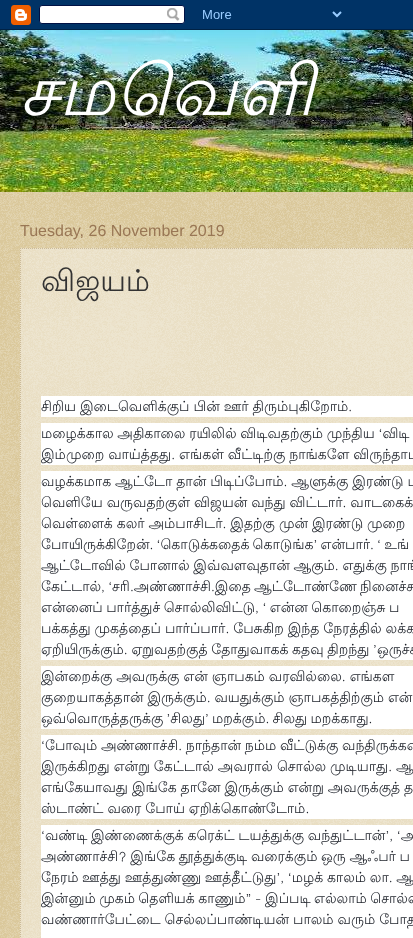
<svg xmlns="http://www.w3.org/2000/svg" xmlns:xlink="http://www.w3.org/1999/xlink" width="413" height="938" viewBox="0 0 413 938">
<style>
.cls-1{font:italic 70px Lohit Tamil;fill:#ffffff}
.cls-2{font:16px Liberation Sans;fill:#997755}
.cls-3{font:30px Lohit Tamil;fill:#333333}
.cls-4{font:14px Lohit Tamil;fill:#1d2129}
</style>
<rect width="100%" height="100%" fill="#c0a154"/>
<image xlink:href="image0.png" x="0" y="192" width="413" height="746"/>
<image xlink:href="image1.png" x="0" y="0" width="413" height="30"/>
<image xlink:href="image2.png" x="0" y="30" width="413" height="162"/>
<rect fill="#ffffff" fill-opacity="0.4" x="20" y="248" width="393" height="690"/>
<path fill="none" stroke="#ccbb99" stroke-dasharray="1 1" d="M20 248.5H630"/>
<path fill="none" stroke="#ccbb99" stroke-dasharray="1 1" d="M20.5 248V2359"/>
<rect fill="#ffffff" x="41" y="396" width="372" height="21"/>
<rect fill="#ffffff" x="41" y="423" width="372" height="42"/>
<rect fill="#ffffff" x="41" y="471" width="372" height="189"/>
<rect fill="#ffffff" x="41" y="666" width="372" height="63"/>
<rect fill="#ffffff" x="41" y="735" width="372" height="84"/>
<rect fill="#ffffff" x="41" y="825" width="372" height="113"/>
<text class="cls-1" x="20" y="115">சமவெளி</text>
<text class="cls-2" x="20" y="236">Tuesday, 26 November 2019</text>
<text class="cls-3" x="41" y="291">விஜயம்</text>
<text class="cls-4"><tspan x="41" y="411" word-spacing="-0.25">சிறிய இடைவெளிக்குப் பின் ஊர் திரும்புகிறோம்.</tspan><tspan x="41" y="438" word-spacing="-0.5">மழைக்கால அதிகாலை ரயிலில் விடிவதற்கும் முந்திய ‘விடி</tspan><tspan x="41" y="459" word-spacing="-0.25">இம்முறை வாய்த்தது. எங்கள் வீட்டிற்கு நாங்களே விருந்தாட</tspan><tspan x="41" y="486" word-spacing="-0.25">வழக்கமாக ஆட்டோ தான் பிடிப்போம். ஆளுக்கு இரண்டு ப</tspan><tspan x="41" y="507" word-spacing="-0.25">வெளியே வருவதற்குள் விஜயன் வந்து விட்டார். வாடகைக்</tspan><tspan x="41" y="528" word-spacing="-0.25">வெள்ளைக் கலர் அம்பாசிடர். இதற்கு முன் இரண்டு முறை</tspan><tspan x="41" y="549" word-spacing="-1">போயிருக்கிறேன். ‘கொடுக்கதைக் கொடுங்க’ என்பார். ‘ உங்</tspan><tspan x="41" y="570" word-spacing="-0.5">ஆட்டோவில் போனால் இவ்வளவுதான் ஆகும். எதுக்கு நாங்</tspan><tspan x="41" y="591" word-spacing="-1">கேட்டால், ‘சரி.அண்ணாச்சி.இதை ஆட்டோண்ணே நினைச்சு</tspan><tspan x="41" y="612" word-spacing="-0.75">என்னைப் பார்த்துச் சொல்லிவிட்டு, ‘ என்ன கொறைஞ்சு ப</tspan><tspan x="41" y="633" word-spacing="-0.25">பக்கத்து முகத்தைப் பார்ப்பார். பேசுகிற இந்த நேரத்தில் லக்க</tspan><tspan x="41" y="654" word-spacing="-0.5">ஏறியிருக்கும். ஏறுவதற்குத் தோதுவாகக் கதவு திறந்து ’ஒருச்ச</tspan><tspan x="41" y="681" word-spacing="-0.25">இன்றைக்கு அவருக்கு என் ஞாபகம் வரவில்லை. எங்கள</tspan><tspan x="41" y="702" word-spacing="-0.25">குறையாகத்தான் இருக்கும். வயதுக்கும் ஞாபகத்திற்கும் என்</tspan><tspan x="41" y="723" word-spacing="-1">ஒவ்வொருத்தருக்கு ’சிலது’ மறக்கும். சிலது மறக்காது.</tspan><tspan x="41" y="750" word-spacing="-0.5">‘போவும் அண்ணாச்சி. நாந்தான் நம்ம வீட்டுக்கு வந்திருக்கன</tspan><tspan x="41" y="771" word-spacing="-0.25">இருக்கிறது என்று கேட்டால் அவரால் சொல்ல முடியாது. ஆ</tspan><tspan x="41" y="792" word-spacing="-0.25">எங்கேயாவது இங்கே தானே இருக்கும் என்று அவருக்குத் த</tspan><tspan x="41" y="813" word-spacing="-0.25">ஸ்டாண்ட் வரை போய் ஏறிக்கொண்டோம்.</tspan><tspan x="41" y="840" word-spacing="-0.5">‘வண்டி இண்ணைக்குக் கரெக்ட் டயத்துக்கு வந்துட்டான்’, ‘அ</tspan><tspan x="41" y="861" word-spacing="-0.5">அண்ணாச்சி? இங்கே தூத்துக்குடி வரைக்கும் ஒரு ஆஃபர் ப</tspan><tspan x="41" y="882" word-spacing="-0.5">நேரம் ஊத்து ஊத்துண்ணு ஊத்தீட்டுது’, ‘மழக் காலம் லா. ஆ</tspan><tspan x="41" y="903" word-spacing="-0.75">இன்னும் முகம் தெளியக் காணும்” - இப்படி எல்லாம் சொல்ல</tspan><tspan x="41" y="924" word-spacing="-0.25">வண்ணார்பேட்டை செல்லப்பாண்டியன் பாலம் வரும் போத</tspan></text>
</svg>
